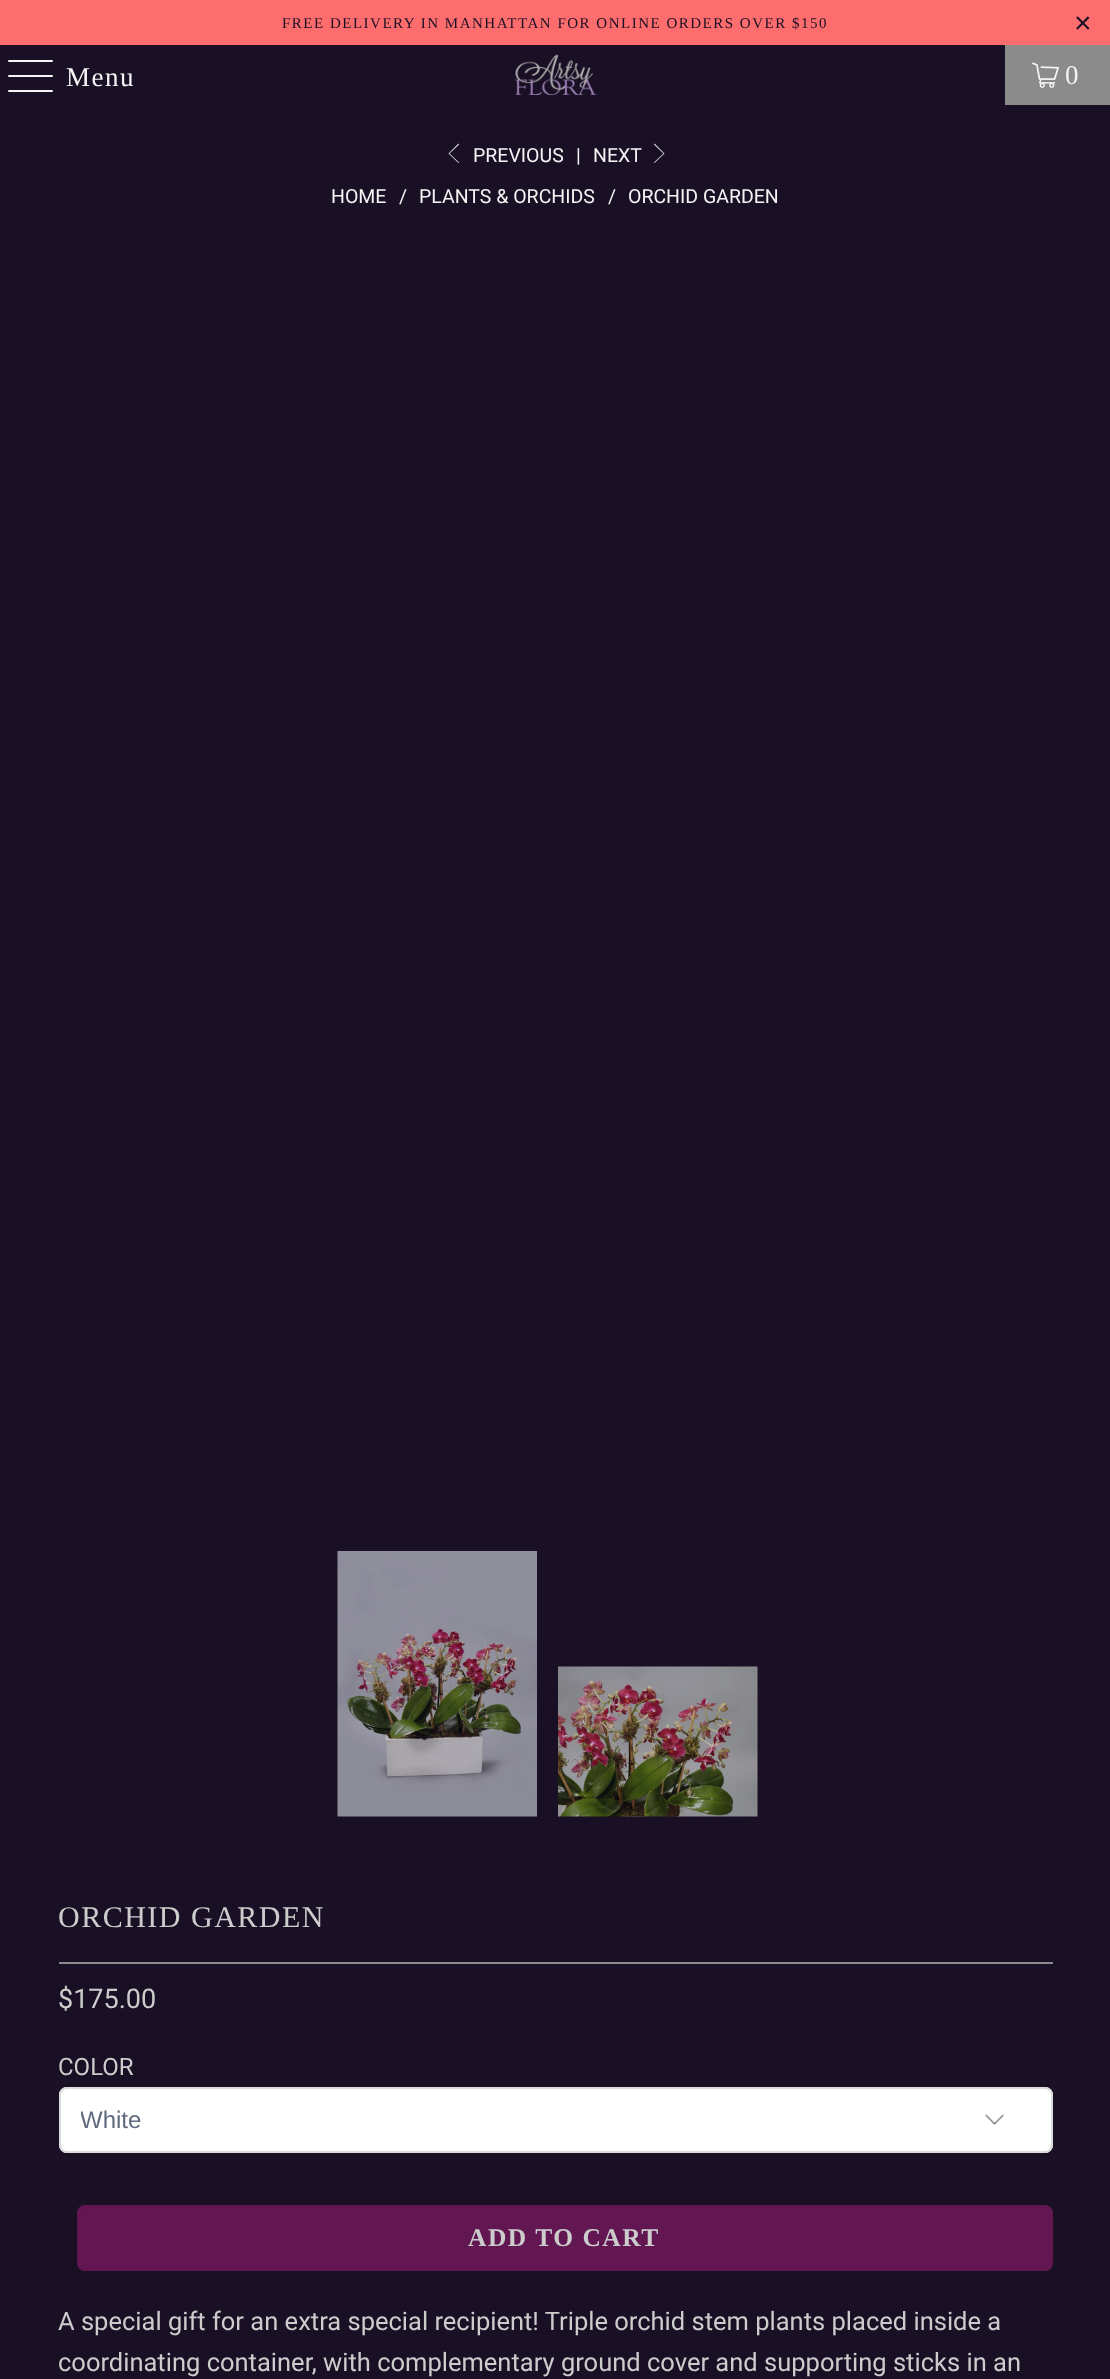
<svg xmlns="http://www.w3.org/2000/svg" xmlns:xlink="http://www.w3.org/1999/xlink" width="1110" height="2379" viewBox="0 0 1110 2379">
<style>
.cls-1{font:15px Liberation Serif;letter-spacing:1.5px;fill:#1a1025}
.cls-2{font:30px Liberation Sans;letter-spacing:1.5px;fill:#1a1025}
.cls-3{font:27px Liberation Serif;letter-spacing:1.5px;fill:#f4f4f4}
.cls-4{font:19.5px Roboto;fill:#f4f4f4}
.cls-5{font:30px Liberation Serif;letter-spacing:1.5px;fill:#cccccc}
.cls-6{font:27px Roboto;fill:#cccccc}
.cls-7{font:24px Roboto;fill:#cccccc}
.cls-8{font:24px Liberation Sans;fill:#5f6a7d}
.cls-9{font:bold 25.5px Liberation Serif;letter-spacing:1.5px;fill:#cccccc}
.cls-10{font:25.5px Roboto;fill:#cccccc}
</style>
<defs>
<clipPath id="clip1"><rect x="81" y="2108" width="950" height="25"/></clipPath>
</defs>
<rect width="100%" height="100%" fill="#1a1025"/>
<rect fill="#fd6d6d" x="0" y="0" width="1110" height="45"/>
<rect fill="#f4f4f4" x="8" y="60" width="45" height="2" rx="1"/>
<rect fill="#f4f4f4" x="8" y="75" width="45" height="2" rx="1"/>
<rect fill="#f4f4f4" x="8" y="90" width="45" height="2" rx="1"/>
<image xlink:href="image0.png" x="514" y="54" width="83" height="42"/>
<rect fill="#8c8b8b" x="1005" y="45" width="105" height="60"/>
<image xlink:href="image1.png" x="1032" y="62" width="27" height="26"/>
<path fill="#f4f4f4" d="M458.5 163L448.5 153.5L458.5 143.5L459 144.5L449.5 153.5L459 162.5Z"/>
<path fill="#f4f4f4" d="M654.5 163L654 162.5L663.5 153.5L654 144.5L654.5 143.5L664.5 153.5Z"/>
<image xlink:href="image2.png" x="337" y="1551" width="200" height="266"/>
<image xlink:href="image3.png" x="558" y="1666" width="200" height="151"/>
<rect fill="#8c8b8b" x="59" y="1962" width="994" height="2"/>
<rect fill="#ffffff" x="59" y="2087" width="994" height="66" rx="8"/>
<image xlink:href="image4.png" x="985" y="2114" width="19" height="11"/>
<rect fill="none" stroke="#d9dbdc" stroke-width="2" x="60" y="2088" width="992" height="64" rx="7"/>
<rect fill="#621753" stroke="#621753" stroke-width="2" x="78" y="2206" width="974" height="64" rx="7"/>
<text class="cls-1" x="282" y="28">FREE DELIVERY IN MANHATTAN FOR ONLINE ORDERS OVER $150</text>
<text class="cls-2" x="1074" y="33">×</text>
<text class="cls-3" x="66" y="86">Menu</text>
<text class="cls-3" x="1065" y="84">0</text>
<text class="cls-4" x="473" y="162">PREVIOUS</text>
<text class="cls-4" x="576" y="162">|</text>
<text class="cls-4" x="593" y="162">NEXT</text>
<text class="cls-4" x="331" y="203">HOME</text>
<text class="cls-4" x="399" y="203">/</text>
<text class="cls-4" x="419" y="203">PLANTS &amp; ORCHIDS</text>
<text class="cls-4" x="608" y="203">/</text>
<text class="cls-4" x="628" y="203">ORCHID GARDEN</text>
<text class="cls-5" x="58" y="1927">ORCHID GARDEN</text>
<text class="cls-6" x="58" y="2008">$175.00</text>
<text class="cls-7" x="58" y="2075">COLOR</text>
<g clip-path="url(#clip1)">
<text class="cls-8" x="80" y="2128">White</text>
</g>
<text class="cls-9" x="468" y="2246">ADD TO CART</text>
<text class="cls-10"><tspan x="58" y="2330">A special gift for an extra special recipient! Triple orchid stem plants placed inside a</tspan><tspan x="58" y="2371">coordinating container, with complementary ground cover and supporting sticks in an</tspan></text>
</svg>
